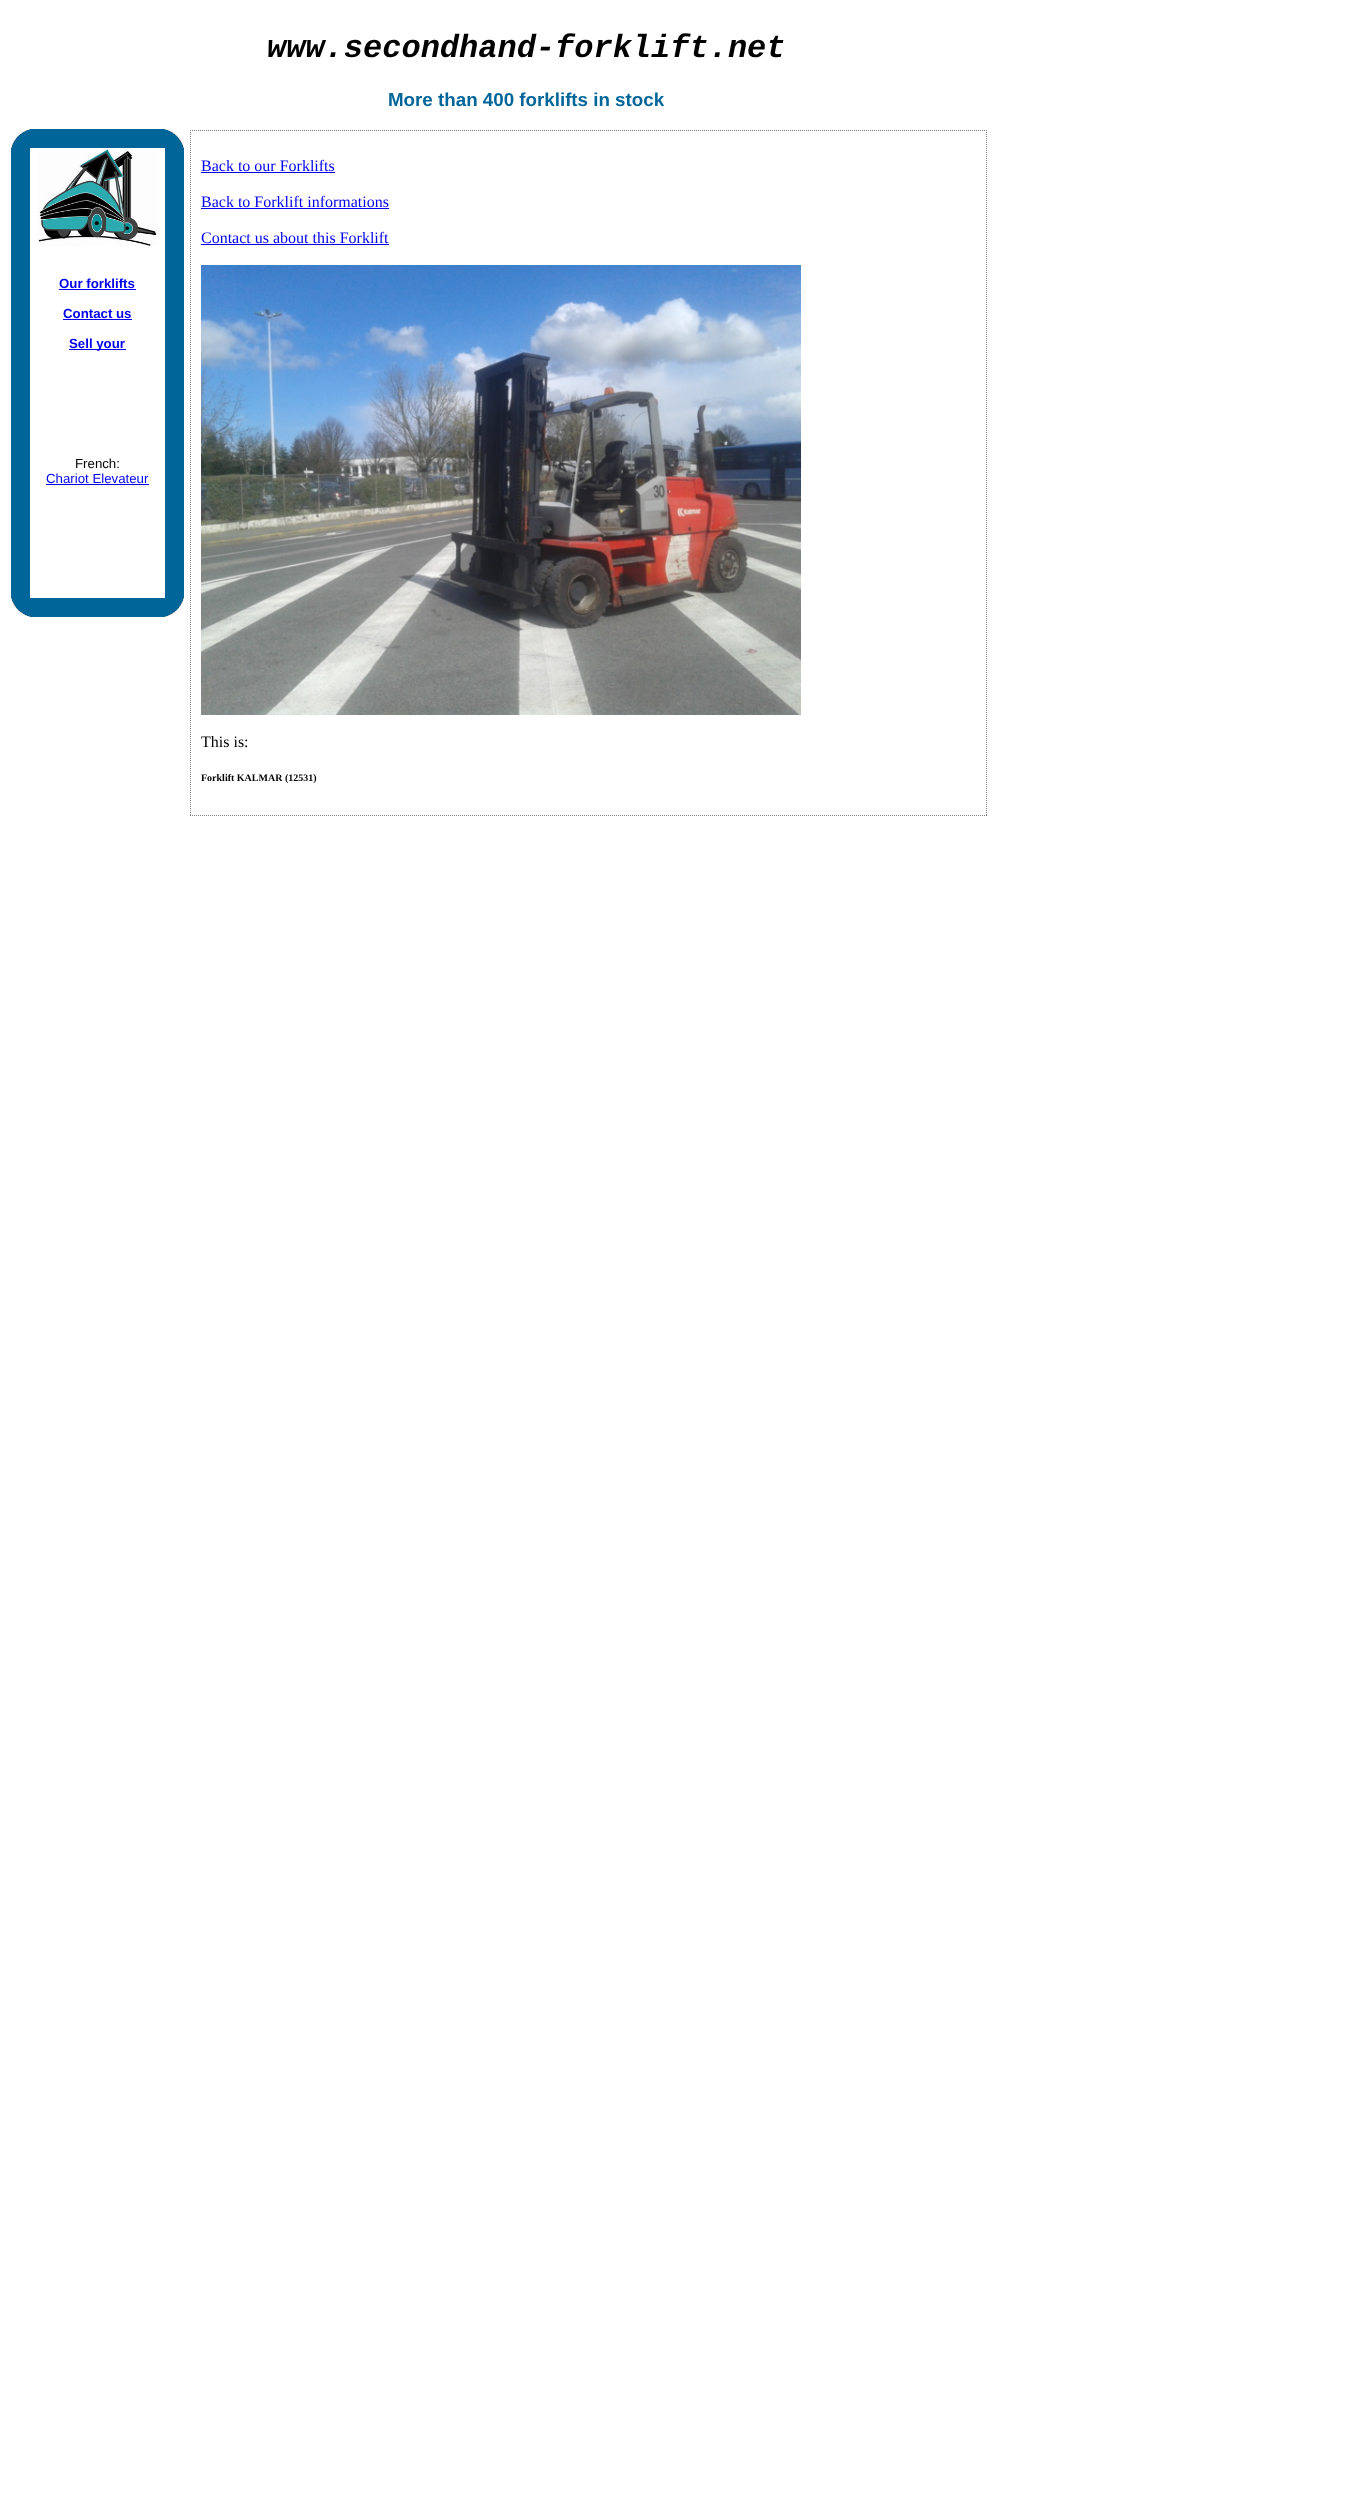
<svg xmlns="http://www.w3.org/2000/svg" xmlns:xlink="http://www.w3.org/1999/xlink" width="1349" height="2517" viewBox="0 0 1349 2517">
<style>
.cls-1{font:italic bold 32px Liberation Mono;fill:#000000}
.cls-2{font:bold 18.75px Liberation Sans;fill:#006699}
.cls-3{font:bold 13.25px Liberation Sans;fill:#0000ee}
.cls-4{font:13.25px Liberation Sans;fill:#000000}
.cls-5{font:13.25px Liberation Sans;fill:#0000ee}
.cls-6{font:16px Liberation Serif;fill:#0000ee}
.cls-7{font:16px Liberation Serif;fill:#000000}
.cls-8{font:bold 10px Liberation Serif;fill:#000000}
</style>
<rect width="100%" height="100%" fill="#ffffff"/>
<image xlink:href="image0.png" x="11" y="129" width="19" height="19"/>
<rect fill="#006699" x="30" y="129" width="135" height="19"/>
<image xlink:href="image1.png" x="165" y="129" width="19" height="19"/>
<rect fill="#006699" x="11" y="148" width="19" height="450"/>
<image xlink:href="image2.png" x="37" y="148" width="121" height="98"/>
<rect fill="#0000ee" x="59" y="289" width="77" height="1"/>
<rect fill="#0000ee" x="63" y="319" width="69" height="1"/>
<rect fill="#0000ee" x="69" y="349" width="57" height="1"/>
<rect fill="#0000ee" x="46" y="484" width="103" height="1"/>
<rect fill="#006699" x="165" y="148" width="19" height="450"/>
<image xlink:href="image3.png" x="11" y="598" width="19" height="19"/>
<rect fill="#006699" x="30" y="598" width="135" height="19"/>
<image xlink:href="image4.png" x="165" y="598" width="19" height="19"/>
<path fill="none" stroke="#808080" stroke-dasharray="1 1" d="M190 130.5H987"/>
<path fill="none" stroke="#808080" stroke-dasharray="1 1" d="M986.5 130V816"/>
<path fill="none" stroke="#808080" stroke-dasharray="1 1" d="M190 815.5H987"/>
<path fill="none" stroke="#808080" stroke-dasharray="1 1" d="M190.5 130V816"/>
<rect fill="#0000ee" x="201" y="172" width="134" height="1"/>
<rect fill="#0000ee" x="201" y="208" width="188" height="1"/>
<rect fill="#0000ee" x="201" y="244" width="188" height="1"/>
<image xlink:href="image5.png" x="201" y="265" width="600" height="450"/>
<text class="cls-1" x="267" y="57">www.secondhand-forklift.net</text>
<text class="cls-2" x="388" y="106">More than 400 forklifts in stock</text>
<text class="cls-3" x="59" y="288">Our forklifts</text>
<text class="cls-3" x="63" y="318">Contact us</text>
<text class="cls-3" x="69" y="348">Sell your</text>
<text class="cls-4" x="75" y="468">French:</text>
<text class="cls-5" x="46" y="483">Chariot Elevateur</text>
<text class="cls-6" x="201" y="171">Back to our Forklifts</text>
<text class="cls-6" x="201" y="207">Back to Forklift informations</text>
<text class="cls-6" x="201" y="243">Contact us about this Forklift</text>
<text class="cls-7" x="201" y="747">This is:</text>
<text class="cls-8" x="201" y="781">Forklift KALMAR (12531)</text>
</svg>
